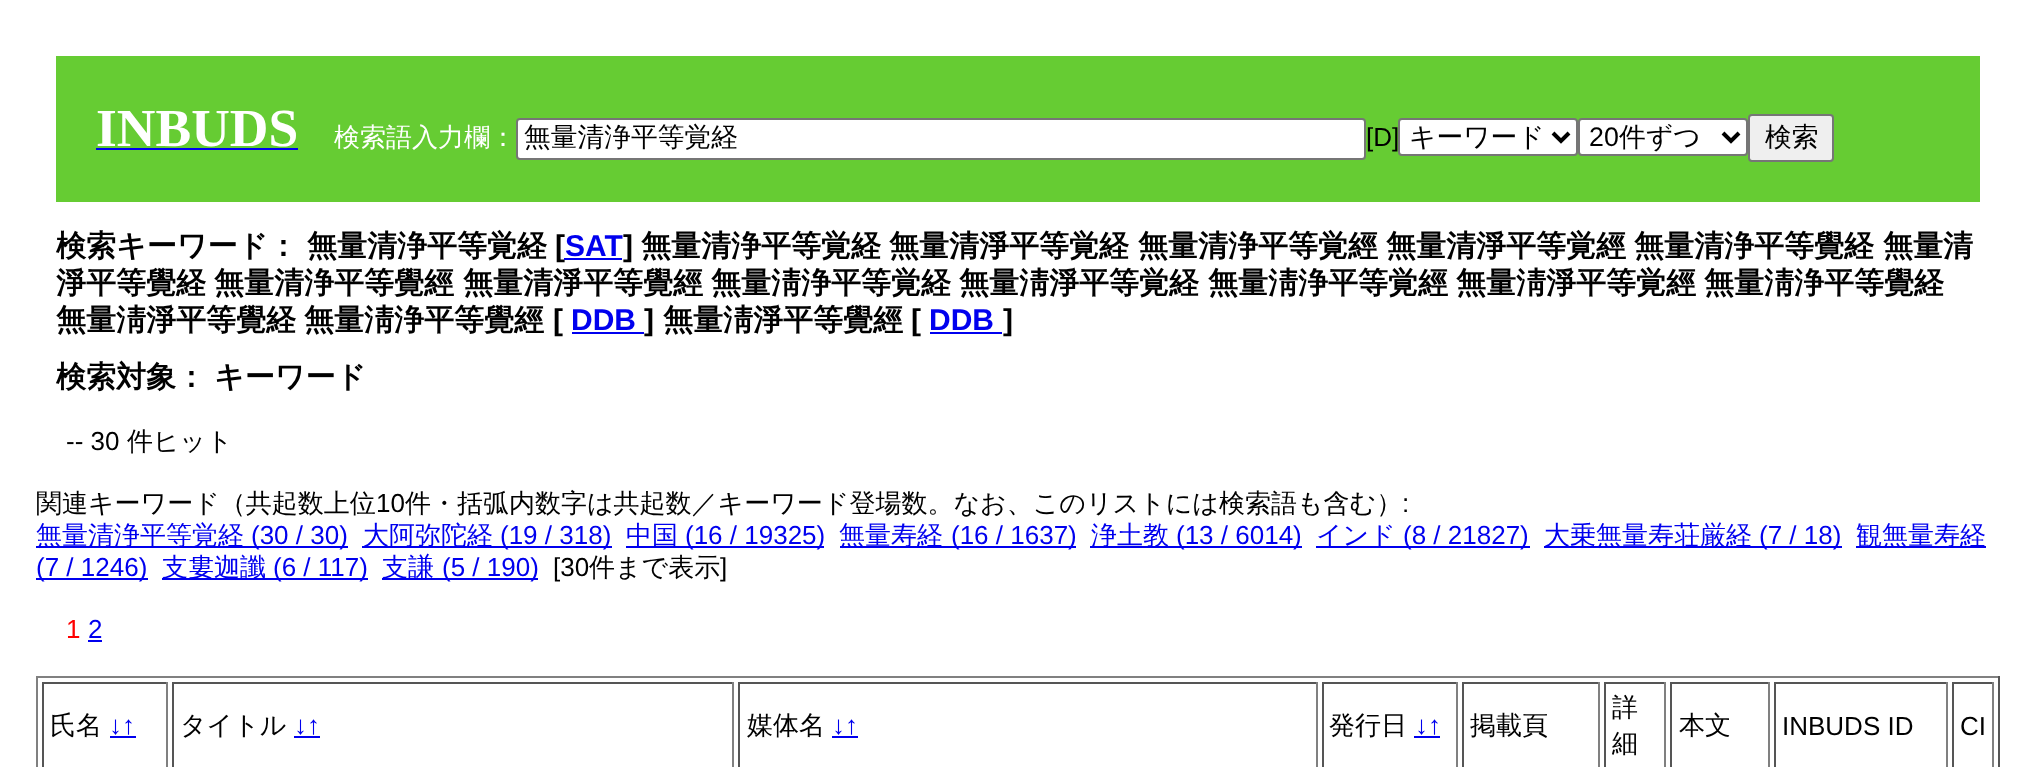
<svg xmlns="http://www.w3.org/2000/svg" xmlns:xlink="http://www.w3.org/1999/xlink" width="2036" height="767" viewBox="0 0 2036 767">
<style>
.cls-1{font:bold 53.5px Liberation Serif;fill:#ffffff}
.cls-2{font:500 26px WenQuanYi Zen Hei;fill:#ffffff}
.cls-3{font:500 26.75px WenQuanYi Zen Hei;fill:#000000}
.cls-4{font:26px Liberation Sans;fill:#000000}
.cls-5{font:26.75px Liberation Sans;fill:#000000}
.cls-6{font:bold 30px WenQuanYi Zen Hei;fill:#000000}
.cls-7{font:bold 30px Liberation Sans;fill:#000000}
.cls-8{font:bold 30px Liberation Sans;fill:#0000ee}
.cls-9{font:500 26px WenQuanYi Zen Hei;fill:#000000}
.cls-10{font:500 26px WenQuanYi Zen Hei;fill:#0000ee}
.cls-11{font:26px Liberation Sans;fill:#0000ee}
.cls-12{font:26px Liberation Sans;fill:#ff0000}
</style>
<rect width="100%" height="100%" fill="#ffffff"/>
<rect fill="#66cc33" x="56" y="56" width="1924" height="146"/>
<rect fill="#0000ee" x="96" y="148" width="202" height="2"/>
<rect fill="#ffffff" stroke="#767676" stroke-width="2" x="517" y="119" width="848" height="40" rx="3"/>
<rect fill="#ffffff" stroke="#767676" stroke-width="2" x="1399" y="119" width="178" height="36" rx="3"/>
<path fill="none" stroke="#000000" stroke-width="4" d="M1553 133L1561 141L1569 133"/>
<rect fill="#ffffff" stroke="#767676" stroke-width="2" x="1579" y="119" width="168" height="36" rx="3"/>
<path fill="none" stroke="#000000" stroke-width="4" d="M1723 133L1731 141L1739 133"/>
<rect fill="#efefef" stroke="#767676" stroke-width="2" x="1749" y="115" width="84" height="46" rx="3"/>
<rect fill="#0000ee" x="572" y="332" width="72" height="2"/>
<rect fill="#0000ee" x="930" y="332" width="72" height="2"/>
<rect fill="#0000ee" x="36" y="546" width="312" height="2"/>
<rect fill="#0000ee" x="362" y="546" width="250" height="2"/>
<rect fill="#0000ee" x="626" y="546" width="198" height="2"/>
<rect fill="#0000ee" x="840" y="546" width="236" height="2"/>
<rect fill="#0000ee" x="1090" y="546" width="212" height="2"/>
<rect fill="#0000ee" x="1316" y="546" width="214" height="2"/>
<rect fill="#0000ee" x="1544" y="546" width="298" height="2"/>
<rect fill="#0000ee" x="1856" y="546" width="130" height="2"/>
<rect fill="#0000ee" x="36" y="578" width="112" height="2"/>
<rect fill="#0000ee" x="162" y="578" width="206" height="2"/>
<rect fill="#0000ee" x="382" y="578" width="156" height="2"/>
<rect fill="#0000ee" x="88" y="640" width="14" height="2"/>
<rect fill="#808080" x="36" y="676" width="1964" height="2"/>
<rect fill="#555555" x="1998" y="676" width="2" height="91"/>
<rect fill="#808080" x="36" y="676" width="2" height="91"/>
<rect fill="#555555" x="42" y="682" width="126" height="2"/>
<rect fill="#808080" x="166" y="682" width="2" height="85"/>
<rect fill="#555555" x="42" y="682" width="2" height="85"/>
<rect fill="#0000ee" x="110" y="736" width="26" height="2"/>
<rect fill="#555555" x="172" y="682" width="562" height="2"/>
<rect fill="#808080" x="732" y="682" width="2" height="85"/>
<rect fill="#555555" x="172" y="682" width="2" height="85"/>
<rect fill="#0000ee" x="294" y="736" width="26" height="2"/>
<rect fill="#555555" x="738" y="682" width="580" height="2"/>
<rect fill="#808080" x="1316" y="682" width="2" height="85"/>
<rect fill="#555555" x="738" y="682" width="2" height="85"/>
<rect fill="#0000ee" x="832" y="736" width="26" height="2"/>
<rect fill="#555555" x="1322" y="682" width="136" height="2"/>
<rect fill="#808080" x="1456" y="682" width="2" height="85"/>
<rect fill="#555555" x="1322" y="682" width="2" height="85"/>
<rect fill="#0000ee" x="1414" y="736" width="26" height="2"/>
<rect fill="#555555" x="1462" y="682" width="138" height="2"/>
<rect fill="#808080" x="1598" y="682" width="2" height="85"/>
<rect fill="#555555" x="1462" y="682" width="2" height="85"/>
<rect fill="#555555" x="1604" y="682" width="62" height="2"/>
<rect fill="#808080" x="1664" y="682" width="2" height="85"/>
<rect fill="#555555" x="1604" y="682" width="2" height="85"/>
<rect fill="#555555" x="1670" y="682" width="100" height="2"/>
<rect fill="#808080" x="1768" y="682" width="2" height="85"/>
<rect fill="#555555" x="1670" y="682" width="2" height="85"/>
<rect fill="#555555" x="1774" y="682" width="174" height="2"/>
<rect fill="#808080" x="1946" y="682" width="2" height="85"/>
<rect fill="#555555" x="1774" y="682" width="2" height="85"/>
<rect fill="#555555" x="1952" y="682" width="42" height="2"/>
<rect fill="#808080" x="1992" y="682" width="2" height="85"/>
<rect fill="#555555" x="1952" y="682" width="2" height="85"/>
<text class="cls-1" x="96" y="146">INBUDS</text>
<text class="cls-2" x="334" y="146">検索語入力欄：</text>
<text class="cls-3" x="524" y="146">無量清浄平等覚経</text>
<text class="cls-4" x="1366" y="146">[D]</text>
<text class="cls-3" x="1409" y="146">キーワード</text>
<text class="cls-5" x="1589" y="146">20</text>
<text class="cls-3" x="1619" y="146">件ずつ</text>
<text class="cls-3" x="1765" y="146">検索</text>
<text class="cls-6" x="56" y="256">検索キーワード： 無量清浄平等覚経</text>
<text class="cls-7" x="555" y="256">[</text>
<text class="cls-8" x="565" y="256">SAT</text>
<rect fill="#0000ee" x="564" y="258" width="58" height="2"/>
<text class="cls-7" x="623" y="256">]</text>
<text class="cls-6" x="641" y="256">無量清浄平等覚経</text>
<text class="cls-6" x="889" y="256">無量清淨平等覚経</text>
<text class="cls-6" x="1138" y="256">無量清浄平等覚經</text>
<text class="cls-6" x="1386" y="256">無量清淨平等覚經</text>
<text class="cls-6" x="1634" y="256">無量清浄平等覺経</text>
<text class="cls-6" x="1883" y="256">無量清</text>
<text class="cls-6" x="56" y="293">淨平等覺経</text>
<text class="cls-6" x="214" y="293">無量清浄平等覺經</text>
<text class="cls-6" x="463" y="293">無量清淨平等覺經</text>
<text class="cls-6" x="711" y="293">無量淸浄平等覚経</text>
<text class="cls-6" x="959" y="293">無量淸淨平等覚経</text>
<text class="cls-6" x="1208" y="293">無量淸浄平等覚經</text>
<text class="cls-6" x="1456" y="293">無量淸淨平等覚經</text>
<text class="cls-6" x="1704" y="293">無量淸浄平等覺経</text>
<text class="cls-6" x="56" y="330">無量淸淨平等覺経</text>
<text class="cls-6" x="304" y="330">無量淸浄平等覺經</text>
<text class="cls-7" x="553" y="330">[</text>
<text class="cls-8" x="571" y="330">DDB</text>
<text class="cls-7" x="644" y="330">]</text>
<text class="cls-6" x="663" y="330">無量淸淨平等覺經</text>
<text class="cls-7" x="911" y="330">[</text>
<text class="cls-8" x="929" y="330">DDB</text>
<text class="cls-7" x="1003" y="330">]</text>
<text class="cls-6" x="56" y="387" word-spacing="-1">検索対象： キーワード</text>
<text class="cls-4" x="66" y="450">-- 30</text>
<text class="cls-9" x="127" y="450">件ヒット</text>
<text class="cls-9" x="36" y="512">関連キーワード（共起数上位</text>
<text class="cls-4" x="376" y="512">10</text>
<text class="cls-9" x="405" y="512">件・括弧内数字は共起数／キーワード登場数。なお、このリストには検索語も含む）</text>
<text class="cls-4" x="1402" y="512">:</text>
<text class="cls-10" x="36" y="544">無量清浄平等覚経</text>
<text class="cls-11" x="251" y="544">(30 / 30)</text>
<text class="cls-10" x="363" y="544">大阿弥陀経</text>
<text class="cls-11" x="500" y="544">(19 / 318)</text>
<text class="cls-10" x="626" y="544">中国</text>
<text class="cls-11" x="685" y="544">(16 / 19325)</text>
<text class="cls-10" x="839" y="544">無量寿経</text>
<text class="cls-11" x="951" y="544">(16 / 1637)</text>
<text class="cls-10" x="1091" y="544">浄土教</text>
<text class="cls-11" x="1176" y="544">(13 / 6014)</text>
<text class="cls-10" x="1316" y="544">インド</text>
<text class="cls-11" x="1403" y="544">(8 / 21827)</text>
<text class="cls-10" x="1544" y="544">大乗無量寿荘厳経</text>
<text class="cls-11" x="1759" y="544">(7 / 18)</text>
<text class="cls-10" x="1856" y="544">観無量寿経</text>
<text class="cls-11" x="36" y="576">(7 / 1246)</text>
<text class="cls-10" x="162" y="576">支婁迦讖</text>
<text class="cls-11" x="273" y="576">(6 / 117)</text>
<text class="cls-10" x="382" y="576">支謙</text>
<text class="cls-11" x="442" y="576">(5 / 190)</text>
<text class="cls-4" x="553" y="576">[30</text>
<text class="cls-9" x="589" y="576">件まで表示</text>
<text class="cls-4" x="720" y="576">]</text>
<text class="cls-12" x="66" y="638">1</text>
<text class="cls-11" x="88" y="638">2</text>
<text class="cls-9" x="50" y="734">氏名</text>
<text class="cls-11" x="109" y="734">↓↑</text>
<text class="cls-9" x="180" y="734">タイトル</text>
<text class="cls-11" x="294" y="734">↓↑</text>
<text class="cls-9" x="747" y="734">媒体名</text>
<text class="cls-11" x="832" y="734">↓↑</text>
<text class="cls-9" x="1329" y="734">発行日</text>
<text class="cls-11" x="1415" y="734">↓↑</text>
<text class="cls-9" x="1470" y="734">掲載頁</text>
<text class="cls-9"><tspan x="1612" y="716">詳</tspan><tspan x="1612" y="752">細</tspan></text>
<text class="cls-9" x="1679" y="734">本文</text>
<text class="cls-4" x="1782" y="735">INBUDS ID</text>
<text class="cls-4" x="1960" y="735">CI</text>
</svg>
